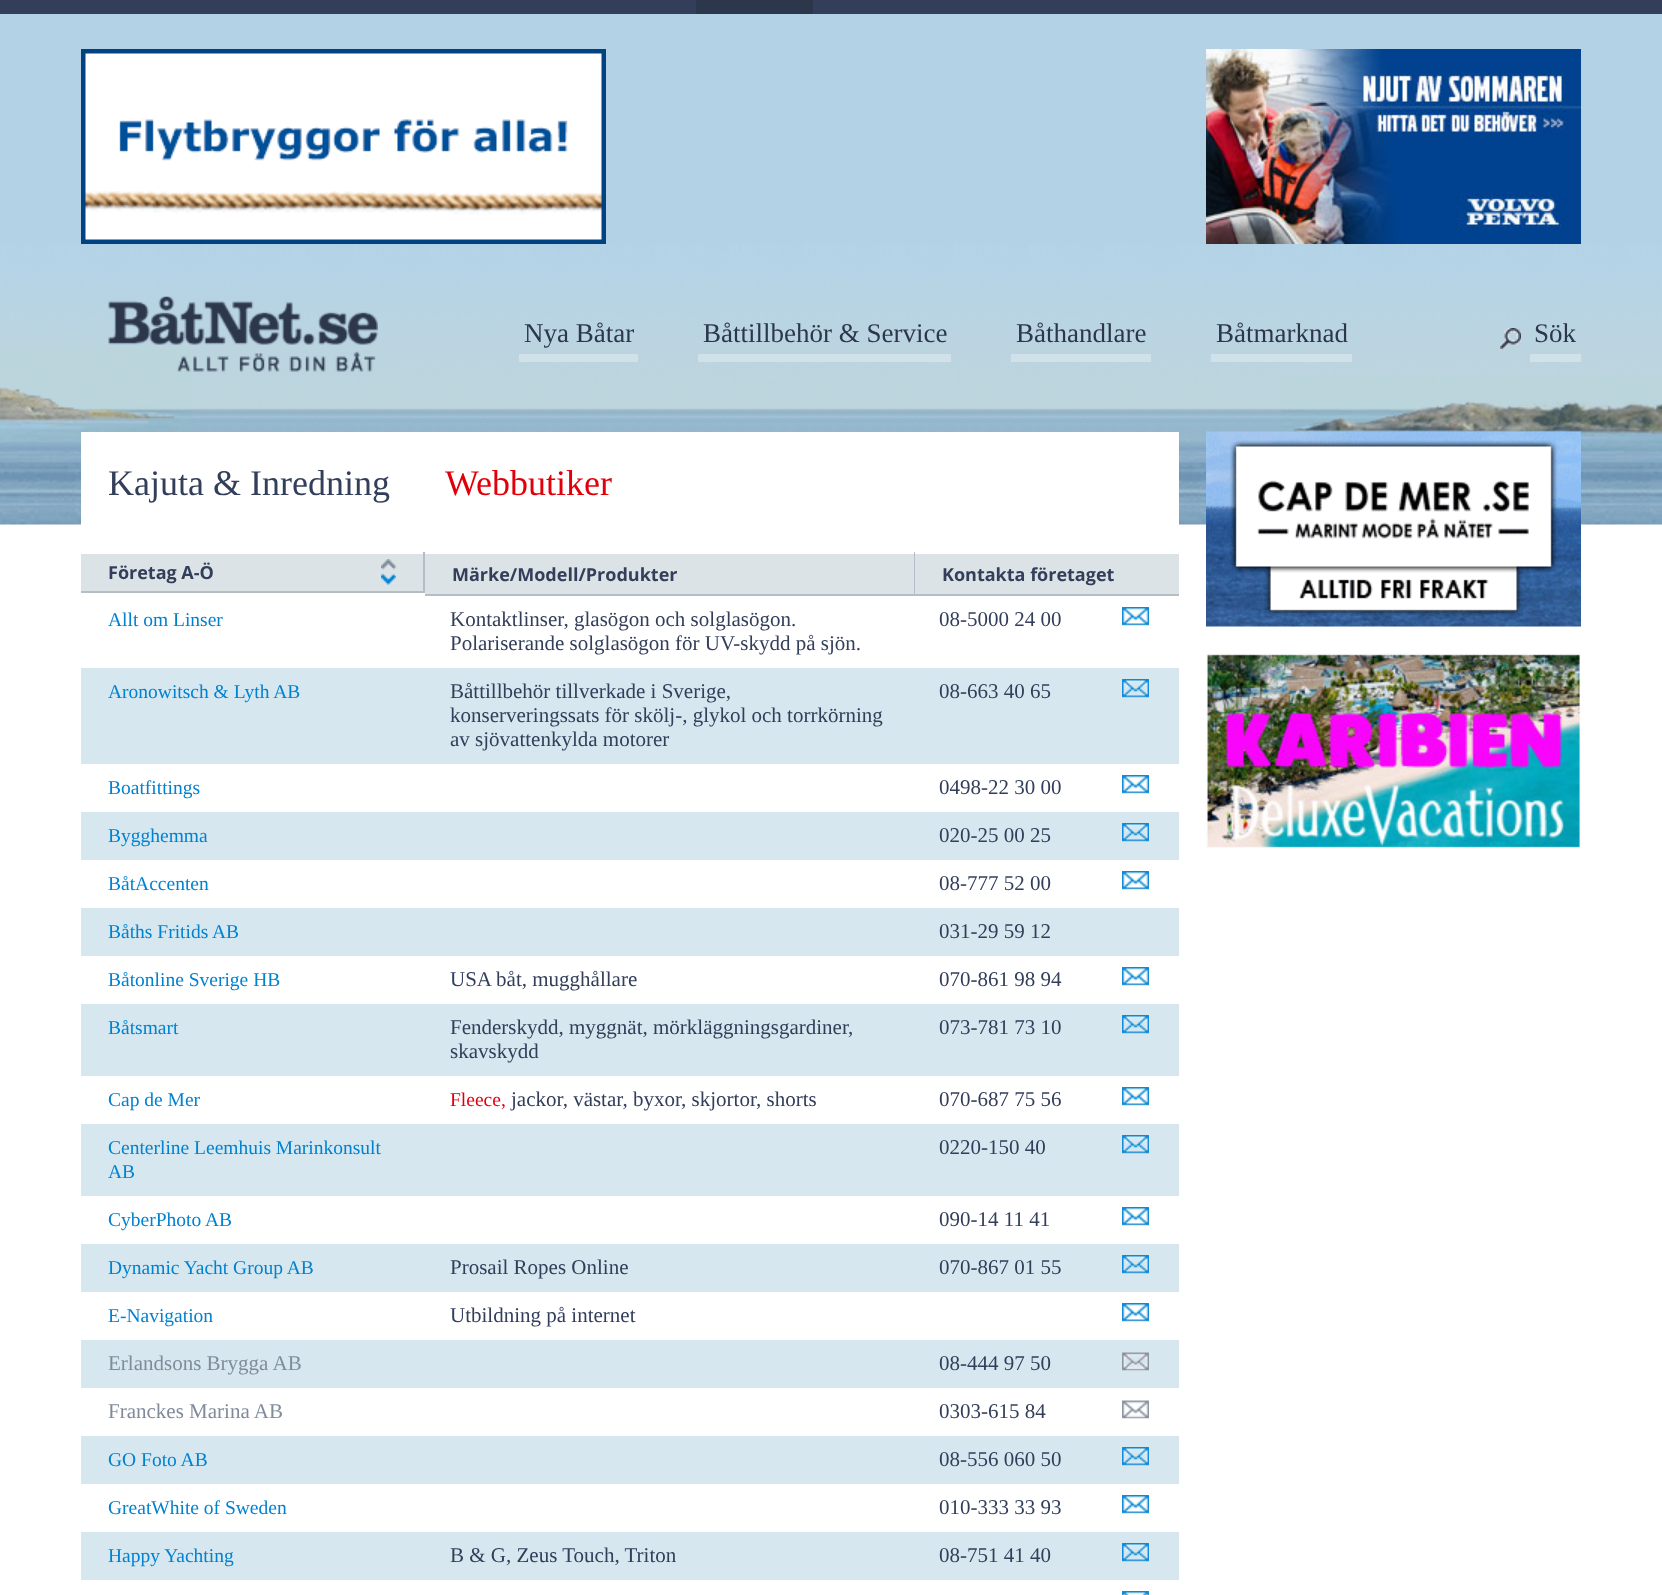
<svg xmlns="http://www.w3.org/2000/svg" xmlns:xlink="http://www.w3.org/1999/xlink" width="1662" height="1595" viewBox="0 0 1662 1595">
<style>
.cls-1{font:27px Liberation Serif;fill:#2c374c}
.cls-2{font:36px Liberation Serif;fill:#323e5a}
.cls-3{font:36px Liberation Serif;fill:#e1000a}
.cls-4{font:bold 18px Open Sans;fill:#323e5a}
.cls-5{font:19.5px Liberation Serif;fill:#0082d0}
.cls-6{font:21px Liberation Serif;fill:#323e5a}
.cls-7{font:19.5px Liberation Serif;fill:#e1000a}
.cls-8{font:21px Liberation Serif;fill:#808c9b}
</style>
<rect width="100%" height="100%" fill="#ffffff"/>
<rect fill="#323e5a" x="0" y="0" width="1662" height="14"/>
<rect fill="#2c374c" x="696" y="0" width="117" height="14"/>
<rect fill="#b4d2e6" x="0" y="14" width="1662" height="231"/>
<image xlink:href="image0.png" x="81" y="49" width="525" height="195"/>
<image xlink:href="image1.png" x="1206" y="49" width="375" height="195"/>
<image xlink:href="image2.png" x="0" y="245" width="1662" height="280"/>
<image xlink:href="image3.png" x="0" y="348" width="1662" height="105"/>
<image xlink:href="image4.png" x="108" y="296" width="270" height="76"/>
<rect fill="#d0e1e9" x="519" y="354" width="119" height="8"/>
<rect fill="#d0e1e9" x="698" y="354" width="253" height="8"/>
<rect fill="#d0e1e9" x="1011" y="354" width="140" height="8"/>
<rect fill="#d0e1e9" x="1211" y="354" width="141" height="8"/>
<image xlink:href="image5.png" x="1500" y="328" width="21" height="21"/>
<rect fill="#d0e1e9" x="1530" y="354" width="51" height="8"/>
<rect fill="#ffffff" x="81" y="432" width="1098" height="93"/>
<rect fill="#dbe3e6" x="81" y="554" width="342" height="37"/>
<rect fill="#b4bec6" x="423" y="552" width="2" height="41"/>
<rect fill="#b4bec6" x="81" y="591" width="344" height="2"/>
<image xlink:href="image6.png" x="381" y="559" width="15" height="11"/>
<image xlink:href="image7.png" x="381" y="573" width="15" height="12"/>
<rect fill="#dbe3e6" x="425" y="554" width="489" height="40"/>
<rect fill="#b4bec6" x="914" y="552" width="1" height="44"/>
<rect fill="#b4bec6" x="425" y="594" width="754" height="2"/>
<rect fill="#dbe3e6" x="915" y="554" width="264" height="40"/>
<image xlink:href="image8.png" x="1122" y="607" width="27" height="19"/>
<rect fill="#d6e7ef" x="81" y="668" width="1098" height="96"/>
<image xlink:href="image9.png" x="1122" y="679" width="27" height="19"/>
<image xlink:href="image8.png" x="1122" y="775" width="27" height="19"/>
<rect fill="#d6e7ef" x="81" y="812" width="1098" height="48"/>
<image xlink:href="image9.png" x="1122" y="823" width="27" height="19"/>
<image xlink:href="image8.png" x="1122" y="871" width="27" height="19"/>
<rect fill="#d6e7ef" x="81" y="908" width="1098" height="48"/>
<image xlink:href="image8.png" x="1122" y="967" width="27" height="19"/>
<rect fill="#d6e7ef" x="81" y="1004" width="1098" height="72"/>
<image xlink:href="image9.png" x="1122" y="1015" width="27" height="19"/>
<image xlink:href="image8.png" x="1122" y="1087" width="27" height="19"/>
<rect fill="#d6e7ef" x="81" y="1124" width="1098" height="72"/>
<image xlink:href="image9.png" x="1122" y="1135" width="27" height="19"/>
<image xlink:href="image8.png" x="1122" y="1207" width="27" height="19"/>
<rect fill="#d6e7ef" x="81" y="1244" width="1098" height="48"/>
<image xlink:href="image9.png" x="1122" y="1255" width="27" height="19"/>
<image xlink:href="image8.png" x="1122" y="1303" width="27" height="19"/>
<rect fill="#d6e7ef" x="81" y="1340" width="1098" height="48"/>
<image xlink:href="image10.png" x="1122" y="1352" width="27" height="19"/>
<image xlink:href="image11.png" x="1122" y="1400" width="27" height="19"/>
<rect fill="#d6e7ef" x="81" y="1436" width="1098" height="48"/>
<image xlink:href="image9.png" x="1122" y="1447" width="27" height="19"/>
<image xlink:href="image8.png" x="1122" y="1495" width="27" height="19"/>
<rect fill="#d6e7ef" x="81" y="1532" width="1098" height="48"/>
<image xlink:href="image9.png" x="1122" y="1543" width="27" height="19"/>
<image xlink:href="image12.png" x="1122" y="1591" width="27" height="4"/>
<image xlink:href="image13.png" x="1206" y="431" width="375" height="196"/>
<image xlink:href="image14.png" x="1206" y="653" width="375" height="196"/>
<text class="cls-1" x="524" y="342">Nya Båtar</text>
<text class="cls-1" x="703" y="342">Båttillbehör &amp; Service</text>
<text class="cls-1" x="1016" y="342">Båthandlare</text>
<text class="cls-1" x="1216" y="342">Båtmarknad</text>
<text class="cls-1" x="1534" y="342">Sök</text>
<text class="cls-2" x="108" y="495">Kajuta &amp; Inredning</text>
<text class="cls-3" x="445" y="495">Webbutiker</text>
<text class="cls-4" x="108" y="579">Företag A-Ö</text>
<text class="cls-4" x="452" y="581">Märke/Modell/Produkter</text>
<text class="cls-4" x="942" y="581">Kontakta företaget</text>
<text class="cls-5" x="108" y="626">Allt om Linser</text>
<text class="cls-6"><tspan x="450" y="626">Kontaktlinser, glasögon och solglasögon.</tspan><tspan x="450" y="650">Polariserande solglasögon för UV-skydd på sjön.</tspan></text>
<text class="cls-6" x="939" y="626">08-5000 24 00</text>
<text class="cls-5" x="108" y="698">Aronowitsch &amp; Lyth AB</text>
<text class="cls-6"><tspan x="450" y="698">Båttillbehör tillverkade i Sverige,</tspan><tspan x="450" y="722">konserveringssats för skölj-, glykol och torrkörning</tspan><tspan x="450" y="746">av sjövattenkylda motorer</tspan></text>
<text class="cls-6" x="939" y="698">08-663 40 65</text>
<text class="cls-5" x="108" y="794">Boatfittings</text>
<text class="cls-6" x="939" y="794">0498-22 30 00</text>
<text class="cls-5" x="108" y="842">Bygghemma</text>
<text class="cls-6" x="939" y="842">020-25 00 25</text>
<text class="cls-5" x="108" y="890">BåtAccenten</text>
<text class="cls-6" x="939" y="890">08-777 52 00</text>
<text class="cls-5" x="108" y="938">Båths Fritids AB</text>
<text class="cls-6" x="939" y="938">031-29 59 12</text>
<text class="cls-5" x="108" y="986">Båtonline Sverige HB</text>
<text class="cls-6" x="450" y="986">USA båt, mugghållare</text>
<text class="cls-6" x="939" y="986">070-861 98 94</text>
<text class="cls-5" x="108" y="1034">Båtsmart</text>
<text class="cls-6"><tspan x="450" y="1034">Fenderskydd, myggnät, mörkläggningsgardiner,</tspan><tspan x="450" y="1058">skavskydd</tspan></text>
<text class="cls-6" x="939" y="1034">073-781 73 10</text>
<text class="cls-5" x="108" y="1106">Cap de Mer</text>
<text class="cls-7" x="450" y="1106">Fleece,</text>
<text class="cls-6" x="511" y="1106">jackor, västar, byxor, skjortor, shorts</text>
<text class="cls-6" x="939" y="1106">070-687 75 56</text>
<text class="cls-5"><tspan x="108" y="1154">Centerline Leemhuis Marinkonsult</tspan><tspan x="108" y="1178">AB</tspan></text>
<text class="cls-6" x="939" y="1154">0220-150 40</text>
<text class="cls-5" x="108" y="1226">CyberPhoto AB</text>
<text class="cls-6" x="939" y="1226">090-14 11 41</text>
<text class="cls-5" x="108" y="1274">Dynamic Yacht Group AB</text>
<text class="cls-6" x="450" y="1274">Prosail Ropes Online</text>
<text class="cls-6" x="939" y="1274">070-867 01 55</text>
<text class="cls-5" x="108" y="1322">E-Navigation</text>
<text class="cls-6" x="450" y="1322">Utbildning på internet</text>
<text class="cls-8" x="108" y="1370">Erlandsons Brygga AB</text>
<text class="cls-6" x="939" y="1370">08-444 97 50</text>
<text class="cls-8" x="108" y="1418">Franckes Marina AB</text>
<text class="cls-6" x="939" y="1418">0303-615 84</text>
<text class="cls-5" x="108" y="1466">GO Foto AB</text>
<text class="cls-6" x="939" y="1466">08-556 060 50</text>
<text class="cls-5" x="108" y="1514">GreatWhite of Sweden</text>
<text class="cls-6" x="939" y="1514">010-333 33 93</text>
<text class="cls-5" x="108" y="1562">Happy Yachting</text>
<text class="cls-6" x="450" y="1562">B &amp; G, Zeus Touch, Triton</text>
<text class="cls-6" x="939" y="1562">08-751 41 40</text>
</svg>
